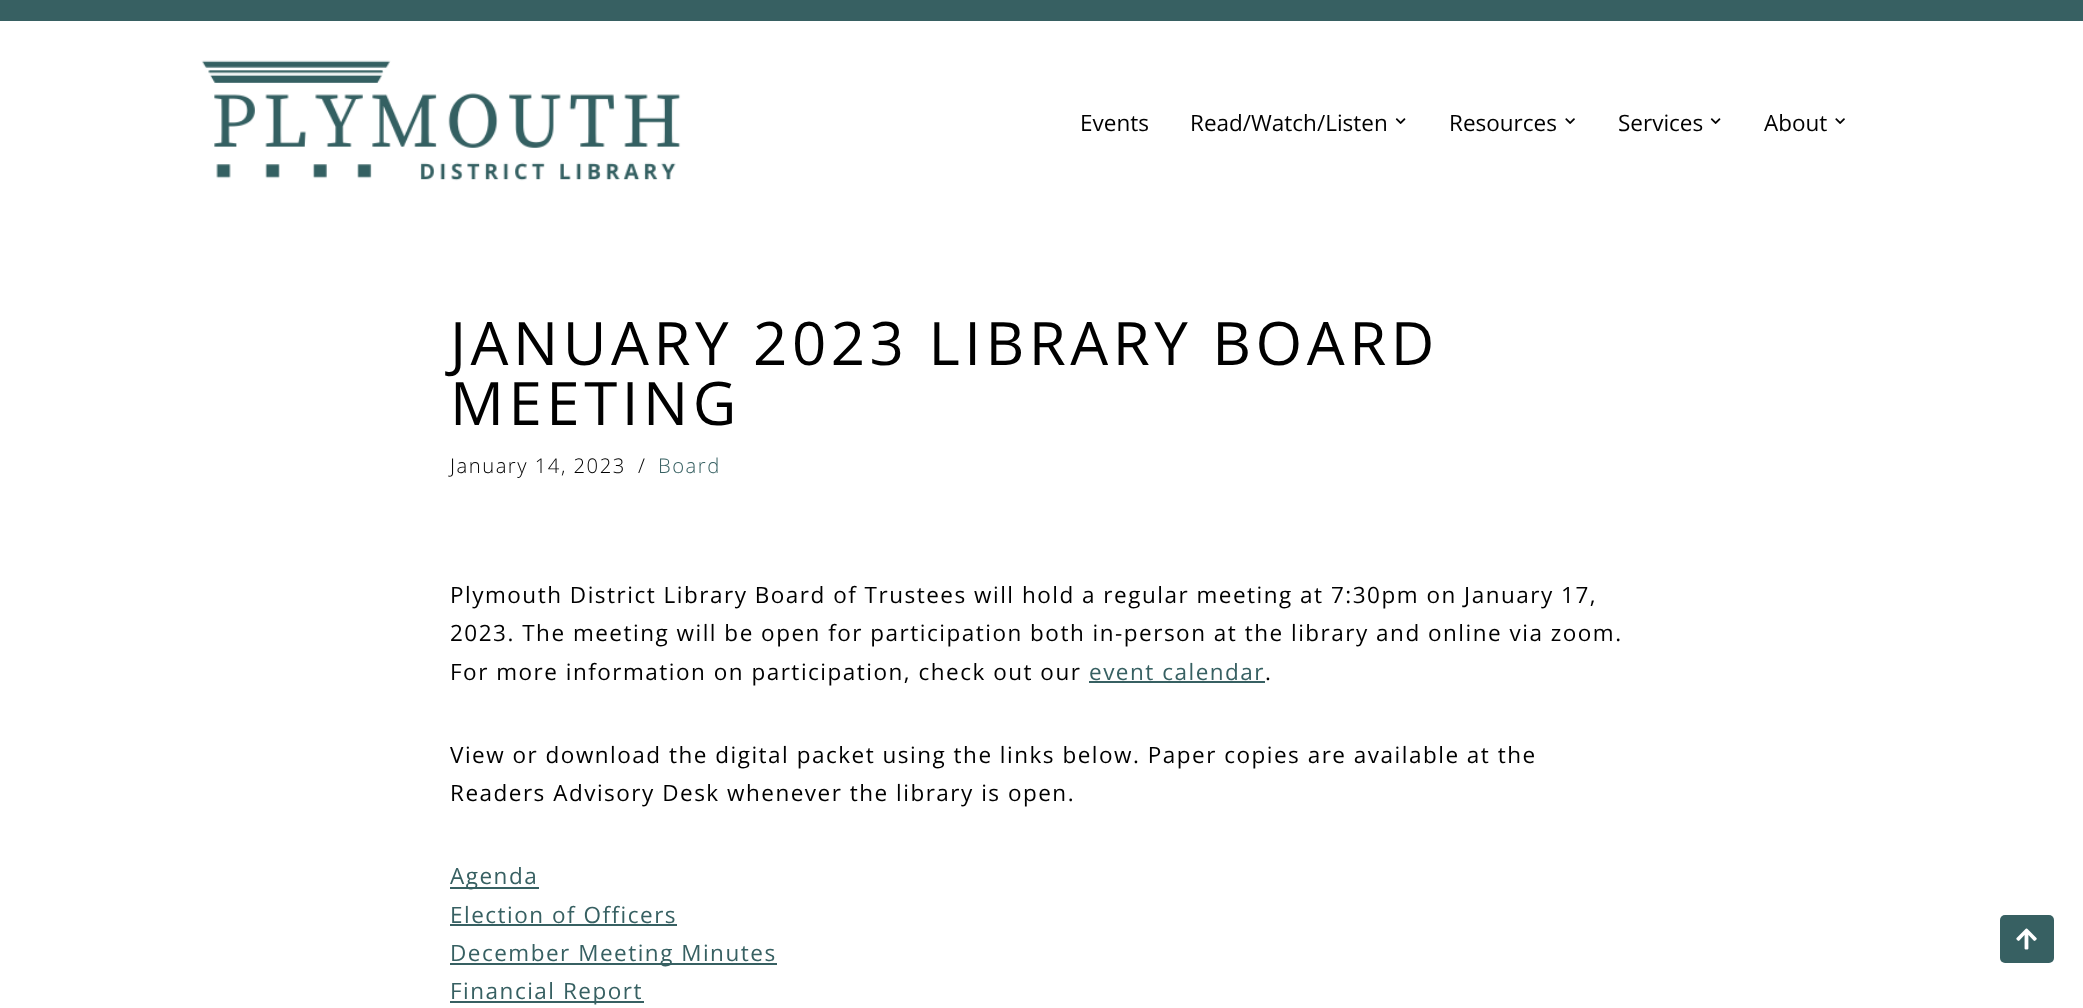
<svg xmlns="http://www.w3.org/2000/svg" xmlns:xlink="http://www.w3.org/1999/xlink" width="2083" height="1008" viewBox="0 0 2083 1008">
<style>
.cls-1{font:22.5px Open Sans;fill:#000000}
.cls-2{font:60px Open Sans;letter-spacing:4.5px;fill:#000000}
.cls-3{font:300 20.25px Open Sans;letter-spacing:1.5px;fill:#000000}
.cls-4{font:300 20.25px Open Sans;letter-spacing:1.5px;fill:#376062}
.cls-5{font:22.5px Open Sans;letter-spacing:1.5px;fill:#000000}
.cls-6{font:22.5px Open Sans;letter-spacing:1.5px;fill:#376062}
</style>
<rect width="100%" height="100%" fill="#ffffff"/>
<rect fill="#376062" x="0" y="0" width="2083" height="21"/>
<image xlink:href="image0.png" x="201" y="60" width="480" height="121"/>
<image xlink:href="image1.png" x="1395" y="118" width="11" height="6"/>
<image xlink:href="image2.png" x="1565" y="118" width="10" height="6"/>
<image xlink:href="image1.png" x="1710" y="118" width="11" height="6"/>
<image xlink:href="image2.png" x="1835" y="118" width="10" height="6"/>
<rect fill="#376062" x="1089" y="681" width="176" height="2"/>
<rect fill="#376062" x="450" y="887" width="89" height="2"/>
<rect fill="#376062" x="450" y="924" width="227" height="2"/>
<rect fill="#376062" x="450" y="963" width="327" height="2"/>
<rect fill="#376062" x="450" y="1001" width="194" height="2"/>
<rect fill="#376062" x="2000" y="915" width="54" height="48" rx="5"/>
<image xlink:href="image3.png" x="2016" y="928" width="21" height="22"/>
<text class="cls-1" x="1080" y="131">Events</text>
<text class="cls-1" x="1190" y="131">Read/Watch/Listen</text>
<text class="cls-1" x="1449" y="131">Resources</text>
<text class="cls-1" x="1618" y="131">Services</text>
<text class="cls-1" x="1764" y="131">About</text>
<text class="cls-2"><tspan x="450" y="365">JANUARY 2023 LIBRARY BOARD</tspan><tspan x="450" y="425">MEETING</tspan></text>
<text class="cls-3" x="450" y="473">January 14, 2023</text>
<text class="cls-3" x="638" y="473">/</text>
<text class="cls-4" x="658" y="473">Board</text>
<text class="cls-5"><tspan x="450" y="603">Plymouth District Library Board of Trustees will hold a regular meeting at 7:30pm on January 17,</tspan><tspan x="450" y="641">2023. The meeting will be open for participation both in-person at the library and online via zoom.</tspan><tspan x="450" y="680">For more information on participation, check out our</tspan></text>
<text class="cls-6" x="1089" y="680">event calendar</text>
<text class="cls-5" x="1265" y="680">.</text>
<text class="cls-5"><tspan x="450" y="763">View or download the digital packet using the links below. Paper copies are available at the</tspan><tspan x="450" y="801">Readers Advisory Desk whenever the library is open.</tspan></text>
<text class="cls-6"><tspan x="450" y="884">Agenda</tspan><tspan x="450" y="923">Election of Officers</tspan><tspan x="450" y="961">December Meeting Minutes</tspan><tspan x="450" y="999">Financial Report</tspan></text>
</svg>
